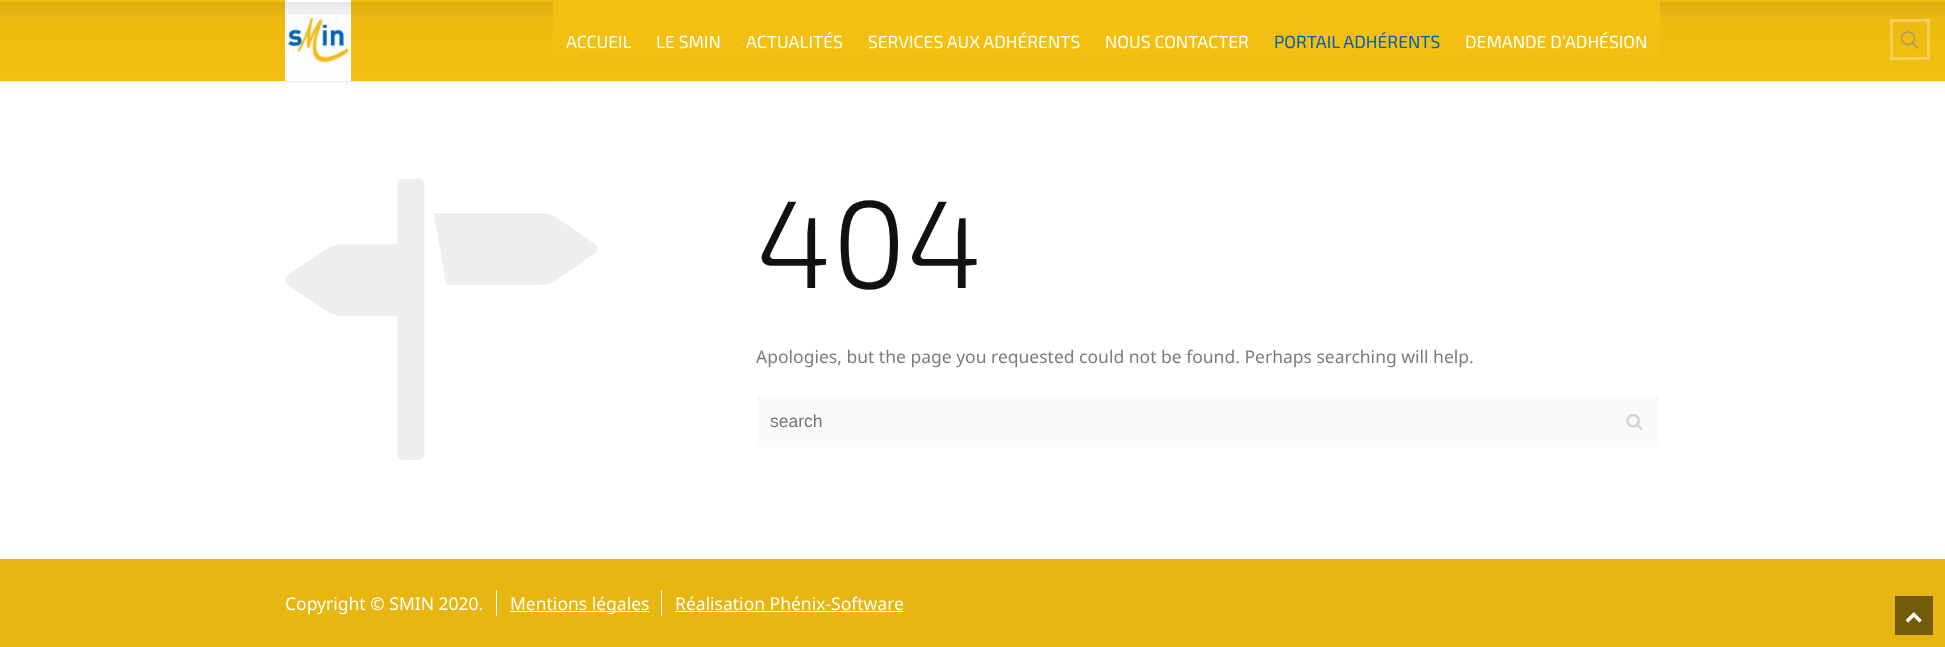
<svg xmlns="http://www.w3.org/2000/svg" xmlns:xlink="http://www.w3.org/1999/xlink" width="1945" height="647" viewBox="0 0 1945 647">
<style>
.cls-1{font:17.5px 'Exo 2';fill:#ffffff}
.cls-2{font:17.5px 'Exo 2';fill:#005eba}
.cls-3{font:300 125px 'Exo 2';fill:#111111}
.cls-4{font:17.5px Noto Sans;fill:#7c7c7c}
.cls-5{font:17.5px Liberation Sans;fill:#757575}
.cls-6{font:17.5px Noto Sans;fill:#ffffff}
</style>
<defs>
<linearGradient id="g1" gradientUnits="userSpaceOnUse" x1="973" y1="0" x2="973" y2="81"><stop offset="0.02" stop-color="#f4bf11"/><stop offset="0.02" stop-color="#dbac0f"/><stop offset="0.23" stop-color="#ecba10"/><stop offset="1" stop-color="#f4bf11"/></linearGradient>
<linearGradient id="g2" gradientUnits="userSpaceOnUse" x1="318" y1="0" x2="318" y2="81"><stop offset="0.02" stop-color="#ffffff"/><stop offset="0.02" stop-color="#e6e6e6"/><stop offset="0.23" stop-color="#f7f7f7"/><stop offset="1" stop-color="#ffffff"/></linearGradient>
</defs>
<rect width="100%" height="100%" fill="#ffffff"/>
<rect fill="#fafafa" x="0" y="82" width="1945" height="3"/>
<rect fill="url(#g1)" x="0" y="0" width="1945" height="81"/>
<rect fill="url(#g2)" x="285" y="0" width="66" height="81"/>
<image xlink:href="image0.png" x="285" y="15" width="66" height="48"/>
<rect fill="#f3bf11" x="553" y="2" width="1107" height="52"/>
<rect fill="#eeeeee" x="0" y="81" width="1945" height="1"/>
<rect fill="#f3f3f3" x="553" y="81" width="1107" height="1"/>
<rect fill="none" stroke="#ffffff" stroke-opacity="0.29" stroke-width="3" x="1891.5" y="20.5" width="37" height="38"/>
<image xlink:href="image1.png" x="1901" y="31" width="18" height="18"/>
<image xlink:href="image2.png" x="285" y="178" width="313" height="282"/>
<rect fill="#fafafa" x="757" y="396" width="902" height="51"/>
<image xlink:href="image3.png" x="1626" y="414" width="17" height="16"/>
<rect fill="#e7b610" x="0" y="559" width="1945" height="88"/>
<rect fill="#ffffff" x="496" y="590" width="1" height="26"/>
<rect fill="#ffffff" x="510" y="611" width="139" height="1"/>
<rect fill="#ffffff" x="661" y="590" width="1" height="26"/>
<rect fill="#ffffff" x="675" y="611" width="229" height="1"/>
<rect fill="#745b08" x="1895" y="596" width="38" height="39"/>
<image xlink:href="image4.png" x="1905" y="612" width="17" height="11"/>
<text class="cls-1" x="566" y="48">ACCUEIL</text>
<text class="cls-1" x="656" y="48">LE SMIN</text>
<text class="cls-1" x="746" y="48">ACTUALITÉS</text>
<text class="cls-1" x="868" y="48">SERVICES AUX ADHÉRENTS</text>
<text class="cls-1" x="1105" y="48">NOUS CONTACTER</text>
<text class="cls-2" x="1274" y="48">PORTAIL ADHÉRENTS</text>
<text class="cls-1" x="1465" y="48">DEMANDE D’ADHÉSION</text>
<text class="cls-3" x="756" y="288">404</text>
<text class="cls-4" x="756" y="363">Apologies, but the page you requested could not be found. Perhaps searching will help.</text>
<text class="cls-5" x="770" y="427">search</text>
<text class="cls-6" x="285" y="610">Copyright © SMIN 2020.</text>
<text class="cls-6" x="510" y="610">Mentions légales</text>
<text class="cls-6" x="675" y="610">Réalisation Phénix-Software</text>
</svg>
